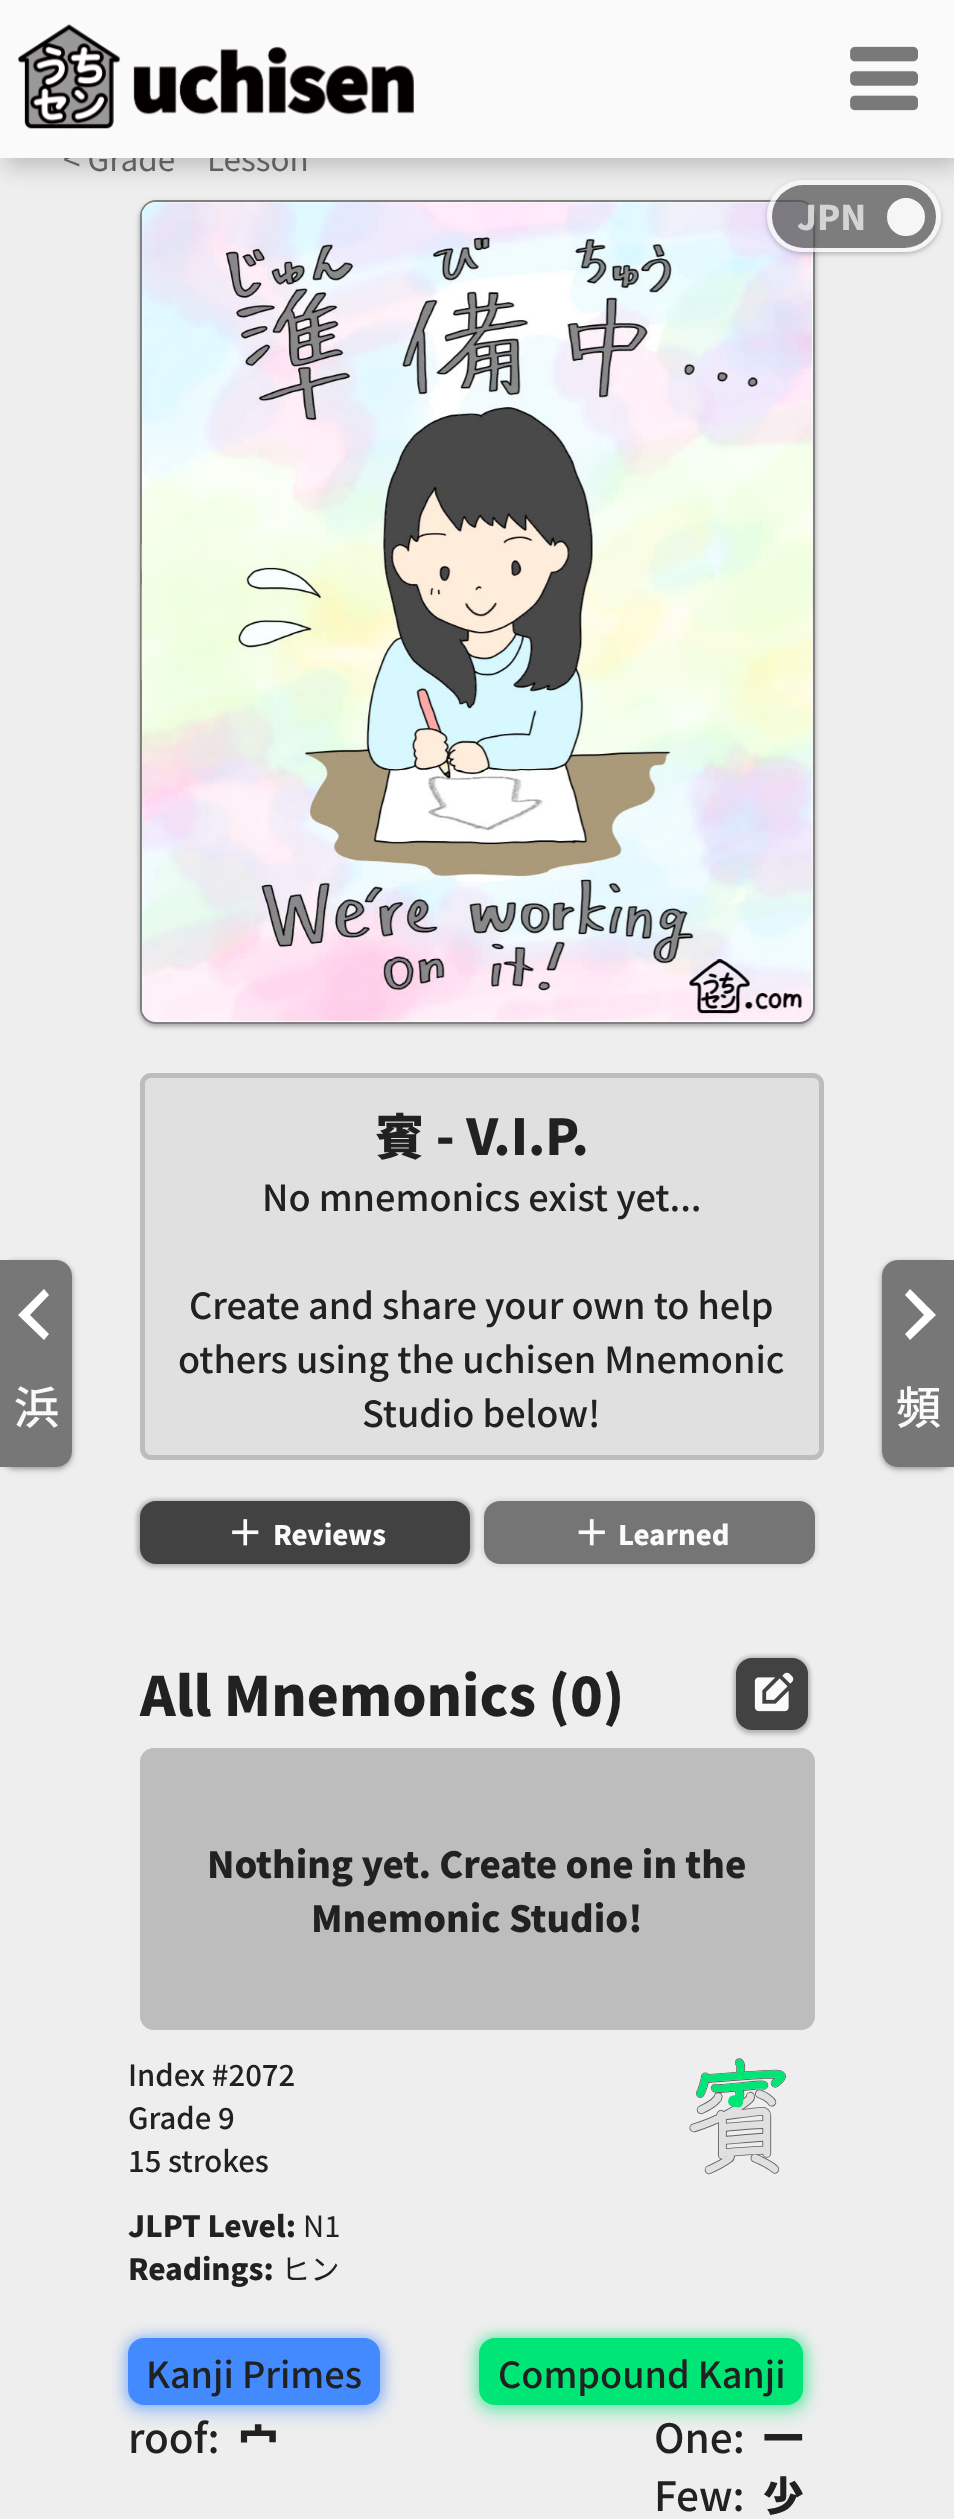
<svg xmlns="http://www.w3.org/2000/svg" xmlns:xlink="http://www.w3.org/1999/xlink" width="954" height="2519" viewBox="0 0 954 2519">
<style>
.cls-1{font:31.5px Noto Sans JP;fill:#5f5f5f}
.cls-2{font:900 49.5px Noto Sans JP;fill:#212121}
.cls-3{font:500 36px Noto Sans JP;fill:#212121}
.cls-4{font:900 27px Noto Sans JP;fill:#fafafa}
.cls-5{font:900 54px Noto Sans JP;fill:#212121}
.cls-6{font:900 36px Noto Sans JP;fill:#212121}
.cls-7{font:500 29.25px Noto Sans JP;fill:#212121}
.cls-8{font:900 29.25px Noto Sans JP;fill:#212121}
.cls-9{font:29.25px Noto Sans JP;fill:#212121}
.cls-10{font:500 40.5px Noto Sans JP;fill:#212121}
.cls-11{font:900 40.5px Noto Sans JP;fill:#212121}
.cls-12{font:900 34px Noto Sans JP;fill:#d4d4d4}
.cls-13{font:500 45px Noto Sans JP;fill:#fafafa}
</style>
<defs>
<clipPath id="clip1"><path d="M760 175H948V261H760ZM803 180H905C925 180 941 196 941 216C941 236 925 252 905 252H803C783 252 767 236 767 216C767 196 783 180 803 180Z" clip-rule="evenodd"/></clipPath>
<clipPath id="clip2"><path d="M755 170H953V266H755ZM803 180H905C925 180 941 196 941 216C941 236 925 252 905 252H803C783 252 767 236 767 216C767 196 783 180 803 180Z" clip-rule="evenodd"/></clipPath>
<clipPath id="clip3"><path d="M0 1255H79V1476H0ZM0 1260H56C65 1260 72 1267 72 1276V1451C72 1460 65 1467 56 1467H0Z" clip-rule="evenodd"/></clipPath>
<clipPath id="clip4"><path d="M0 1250H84V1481H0ZM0 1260H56C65 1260 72 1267 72 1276V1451C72 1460 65 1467 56 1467H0Z" clip-rule="evenodd"/></clipPath>
<clipPath id="clip5"><path d="M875 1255H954V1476H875ZM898 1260H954V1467H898C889 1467 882 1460 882 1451V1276C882 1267 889 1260 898 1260Z" clip-rule="evenodd"/></clipPath>
<clipPath id="clip6"><path d="M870 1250H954V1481H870ZM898 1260H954V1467H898C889 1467 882 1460 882 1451V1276C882 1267 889 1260 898 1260Z" clip-rule="evenodd"/></clipPath>
</defs>
<rect width="100%" height="100%" fill="#eeeeee"/>
<rect fill="#000000" fill-opacity="0.24" filter="blur(2px)" x="140" y="203" width="675" height="823" rx="16"/>
<rect fill="#000000" fill-opacity="0.12" filter="blur(3.5px)" x="140" y="203" width="675" height="823" rx="16"/>
<rect fill="#fafafa" stroke="#808080" stroke-width="2" x="141" y="201" width="673" height="822" rx="15"/>
<image xlink:href="image1.png" x="141" y="544" width="672" height="136"/>
<image xlink:href="image0.png" x="142" y="202" width="671" height="819"/>
<rect fill="#e0e0e0" stroke="#bdbdbd" stroke-width="5" x="142.5" y="1075.5" width="679" height="382" rx="8.5"/>
<rect fill="#000000" fill-opacity="0.19" filter="blur(2px)" x="137" y="1499" width="336" height="67" rx="18"/>
<rect fill="#000000" fill-opacity="0.09" filter="blur(2px)" x="137" y="1501" width="336" height="67" rx="18"/>
<rect fill="#424242" x="140" y="1501" width="330" height="63" rx="16"/>
<image xlink:href="image2.png" x="232" y="1519" width="27" height="27"/>
<rect fill="#000000" fill-opacity="0.09" filter="blur(2px)" x="482" y="1499" width="335" height="67" rx="18"/>
<rect fill="#757575" x="484" y="1501" width="331" height="63" rx="16"/>
<image xlink:href="image3.png" x="578" y="1519" width="27" height="27"/>
<rect fill="#000000" fill-opacity="0.19" filter="blur(2px)" x="734" y="1656" width="76" height="77" rx="18"/>
<rect fill="#000000" fill-opacity="0.09" filter="blur(2px)" x="734" y="1658" width="76" height="77" rx="18"/>
<rect fill="#424242" x="736" y="1658" width="72" height="72" rx="16"/>
<image xlink:href="image4.png" x="754" y="1672" width="40" height="40"/>
<rect fill="#bdbdbd" x="140" y="1748" width="675" height="282" rx="14"/>
<image xlink:href="image5.png" x="689" y="2058" width="97" height="117"/>
<rect fill="#448aff" fill-opacity="0.39" filter="blur(5.5px)" x="126" y="2336" width="257" height="72" rx="18"/>
<rect fill="#448aff" fill-opacity="0.29" filter="blur(9px)" x="124" y="2338" width="261" height="76" rx="20"/>
<rect fill="#448aff" x="128" y="2338" width="252" height="67" rx="16"/>
<rect fill="#00e676" fill-opacity="0.39" filter="blur(5.5px)" x="477" y="2336" width="329" height="72" rx="18"/>
<rect fill="#00e676" fill-opacity="0.29" filter="blur(9px)" x="475" y="2338" width="333" height="76" rx="20"/>
<rect fill="#00e676" x="479" y="2338" width="324" height="67" rx="16"/>
<rect fill="#000000" fill-opacity="0.2" filter="blur(11px)" x="5" y="9" width="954" height="158"/>
<g clip-path="url(#clip1)">
<rect fill="#000000" fill-opacity="0.17" filter="blur(2px)" x="767" y="182" width="174" height="72" rx="36"/>
</g>
<g clip-path="url(#clip2)">
<rect fill="#000000" fill-opacity="0.08" filter="blur(3.5px)" x="767" y="182" width="174" height="72" rx="36"/>
</g>
<rect fill="none" stroke="#fafafa" stroke-opacity="0.7" stroke-width="5" x="769.5" y="182.5" width="169" height="67" rx="33.5"/>
<rect fill="#4d4d4d" fill-opacity="0.7" x="772" y="185" width="164" height="63" rx="31.5"/>
<circle fill="#f6f6f6" stroke="#f6f6f6" stroke-width="5" cx="906" cy="217" r="16.5"/>
<g clip-path="url(#clip3)">
<rect fill="#000000" fill-opacity="0.18" filter="blur(2px)" x="0" y="1262" width="72" height="207" rx="16"/>
</g>
<g clip-path="url(#clip4)">
<rect fill="#000000" fill-opacity="0.22" filter="blur(3.5px)" x="0" y="1262" width="72" height="207" rx="16"/>
</g>
<path fill="#000000" fill-opacity="0.5" d="M0 1260H56C65 1260 72 1267 72 1276V1451C72 1460 65 1467 56 1467H0Z"/>
<path fill="#ffffff" d="M49 1295L44 1289L18 1315L44 1340L49 1334L30 1315Z"/>
<g clip-path="url(#clip5)">
<rect fill="#000000" fill-opacity="0.18" filter="blur(2px)" x="882" y="1262" width="72" height="207" rx="16"/>
</g>
<g clip-path="url(#clip6)">
<rect fill="#000000" fill-opacity="0.22" filter="blur(3.5px)" x="882" y="1262" width="72" height="207" rx="16"/>
</g>
<path fill="#000000" fill-opacity="0.5" d="M898 1260H954V1467H898C889 1467 882 1460 882 1451V1276C882 1267 889 1260 898 1260Z"/>
<path fill="#ffffff" d="M910 1289L905 1295L924 1315L905 1334L910 1340L936 1315Z"/>
<text class="cls-1" x="63" y="171">&lt; Grade</text>
<text class="cls-1" x="207" y="171">Lesson</text>
<text class="cls-2" x="375" y="1155">賓 - V.I.P.</text>
<text class="cls-3" x="262" y="1211">No mnemonics exist yet...</text>
<text class="cls-3" x="189" y="1319">Create and share your own to help</text>
<text class="cls-3" x="178" y="1373">others using the uchisen Mnemonic</text>
<text class="cls-3" x="362" y="1427">Studio below!</text>
<text class="cls-4" x="273" y="1545">Reviews</text>
<text class="cls-4" x="618" y="1545">Learned</text>
<text class="cls-5" x="140" y="1716">All Mnemonics (0)</text>
<text class="cls-6" x="207" y="1878">Nothing yet. Create one in the</text>
<text class="cls-6" x="311" y="1932">Mnemonic Studio!</text>
<text class="cls-7"><tspan x="128" y="2086">Index #2072</tspan><tspan x="128" y="2129">Grade 9</tspan><tspan x="128" y="2172">15 strokes</tspan></text>
<text class="cls-8" x="128" y="2237">JLPT Level:</text>
<text class="cls-9" x="303" y="2237">N1</text>
<text class="cls-8" x="128" y="2280">Readings:</text>
<text class="cls-9" x="281" y="2280">ヒン</text>
<text class="cls-3" x="146" y="2388">Kanji Primes</text>
<text class="cls-10" x="128" y="2453">roof:</text>
<text class="cls-11" x="238" y="2453">宀</text>
<text class="cls-3" x="498" y="2388">Compound Kanji</text>
<text class="cls-10" x="654" y="2453">One:</text>
<text class="cls-11" x="763" y="2453">一</text>
<text class="cls-10" x="654" y="2511">Few:</text>
<text class="cls-11" x="763" y="2511">少</text>
<rect fill="#fafafa" x="0" y="0" width="954" height="158"/>
<image xlink:href="image6.png" x="18" y="24" width="396" height="105"/>
<image xlink:href="image7.png" x="850" y="46" width="68" height="65"/>
<text class="cls-12" x="797" y="230">JPN</text>
<text class="cls-13" x="14" y="1424">浜</text>
<text class="cls-13" x="896" y="1424">頻</text>
</svg>
